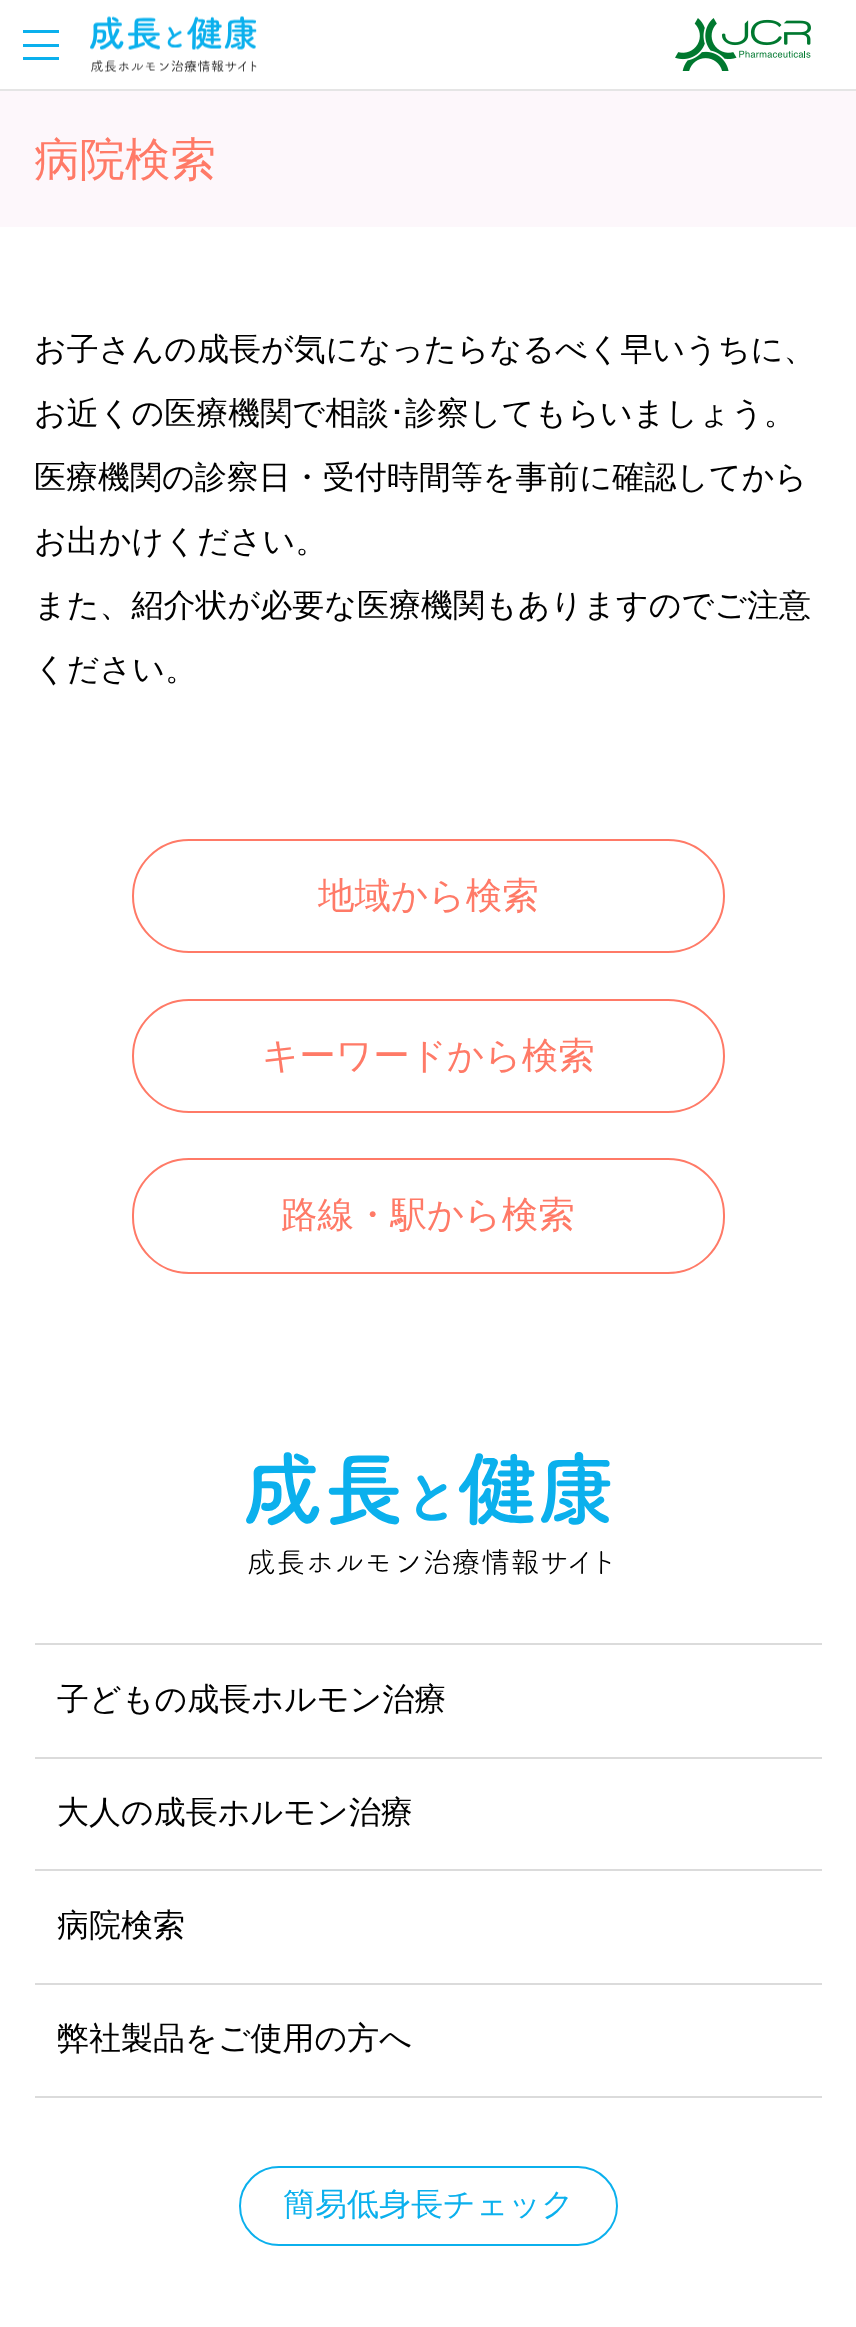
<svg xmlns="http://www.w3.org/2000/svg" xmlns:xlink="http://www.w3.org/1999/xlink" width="856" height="2327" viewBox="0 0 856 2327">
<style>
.cls-1{font:500 45.5px WenQuanYi Zen Hei;fill:#ff7a67}
.cls-2{font:500 32px WenQuanYi Zen Hei;fill:#000000}
.cls-3{font:32px IPAPGothic;fill:#000000}
.cls-4{font:500 36.5px WenQuanYi Zen Hei;fill:#ff7a67}
.cls-5{font:500 32px WenQuanYi Zen Hei;fill:#0bb0ed}
</style>
<rect width="100%" height="100%" fill="#ffffff"/>
<rect fill="#e5e5e5" x="0" y="89" width="856" height="2"/>
<rect fill="#0bb0ed" x="23" y="30" width="36" height="3"/>
<rect fill="#0bb0ed" x="23" y="44" width="36" height="3"/>
<rect fill="#0bb0ed" x="23" y="57" width="36" height="3"/>
<image xlink:href="image0.png" x="90" y="16" width="167" height="57"/>
<image xlink:href="image1.png" x="675" y="18" width="136" height="53"/>
<rect fill="#fdf7fb" x="0" y="91" width="856" height="136"/>
<rect fill="none" stroke="#ff7a67" stroke-width="2" x="133" y="840" width="591" height="112" rx="56"/>
<rect fill="none" stroke="#ff7a67" stroke-width="2" x="133" y="1000" width="591" height="112" rx="56"/>
<rect fill="none" stroke="#ff7a67" stroke-width="2" x="133" y="1159" width="591" height="114" rx="56"/>
<image xlink:href="image2.png" x="246" y="1452" width="365" height="123"/>
<rect fill="#dbdbdb" x="35" y="1643" width="787" height="2"/>
<rect fill="#dbdbdb" x="35" y="1757" width="787" height="2"/>
<rect fill="#dbdbdb" x="35" y="1869" width="787" height="2"/>
<rect fill="#dbdbdb" x="35" y="1983" width="787" height="2"/>
<rect fill="#dbdbdb" x="35" y="2096" width="787" height="2"/>
<rect fill="none" stroke="#0bb0ed" stroke-width="2" x="240" y="2167" width="377" height="78" rx="39"/>
<text class="cls-1" x="34" y="175">病院検索</text>
<text class="cls-2" x="34" y="360">お子さんの成長が気になったらなるべく早いうちに、</text>
<text class="cls-2" x="34" y="424">お近くの医療機関で相談</text>
<text class="cls-3" x="389" y="424">･</text>
<text class="cls-2" x="405" y="424">診察してもらいましょう。</text>
<text class="cls-2" x="34" y="488">医療機関の診察日・受付時間等を事前に確認してから</text>
<text class="cls-2" x="34" y="552">お出かけください。</text>
<text class="cls-2" x="34" y="616">また、紹介状が必要な医療機関もありますのでご注意</text>
<text class="cls-2" x="34" y="680">ください。</text>
<text class="cls-4" x="318" y="908">地域から検索</text>
<text class="cls-4" x="262" y="1068">キーワードから検索</text>
<text class="cls-4" x="281" y="1227">路線・駅から検索</text>
<text class="cls-2" x="57" y="1710">子どもの成長ホルモン治療</text>
<text class="cls-2" x="57" y="1823">大人の成長ホルモン治療</text>
<text class="cls-2" x="57" y="1936">病院検索</text>
<text class="cls-2" x="57" y="2049">弊社製品をご使用の方へ</text>
<text class="cls-5" x="283" y="2215">簡易低身長チェック</text>
</svg>
